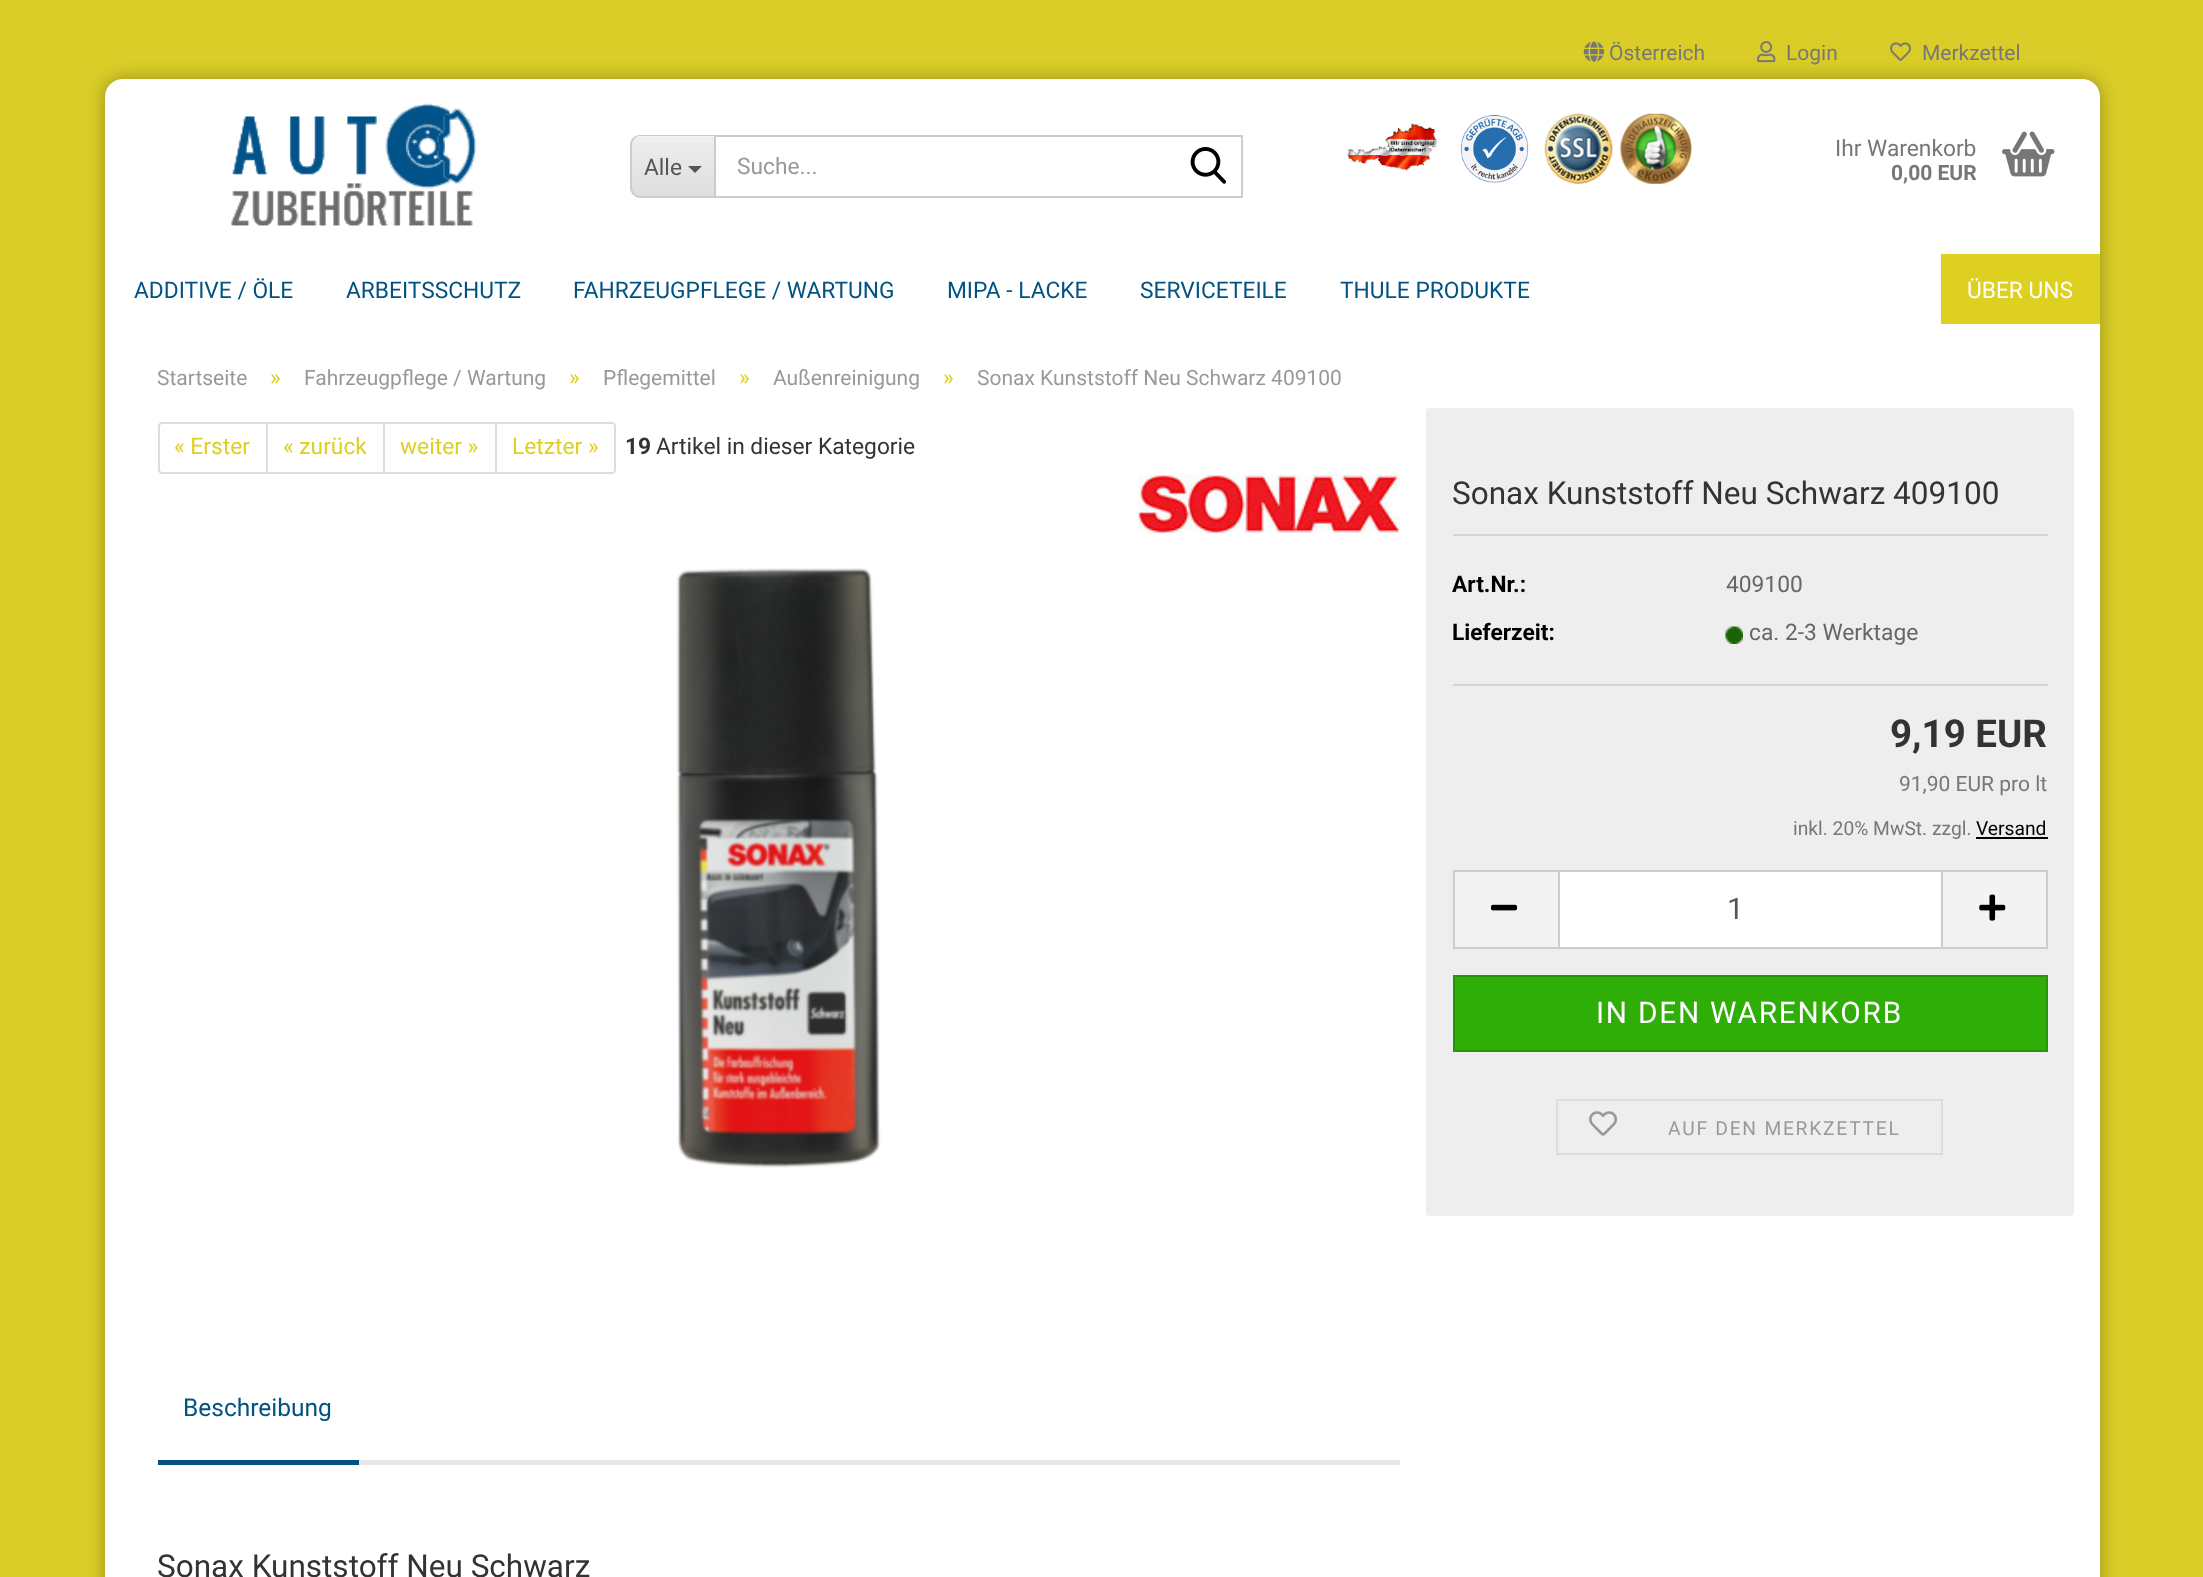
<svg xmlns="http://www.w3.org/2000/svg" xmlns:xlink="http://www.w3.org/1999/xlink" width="2203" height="1577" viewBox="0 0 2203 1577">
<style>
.cls-1{font:21px Roboto;fill:#777777}
.cls-2{font:22.75px Roboto;fill:#555555}
.cls-3{font:22.75px Roboto;fill:#999999}
.cls-4{font:22.75px Roboto;fill:#777777}
.cls-5{font:bold 21px Roboto;fill:#777777}
.cls-6{font:22.75px Roboto;fill:#025382}
.cls-7{font:22.75px Roboto;fill:#ffffff}
.cls-8{font:21px Roboto;fill:#999999}
.cls-9{font:22.75px Roboto;fill:#ddd020}
.cls-10{font:bold 22.75px Roboto;fill:#333333}
.cls-11{font:22.75px Roboto;fill:#333333}
.cls-12{font:31.5px Roboto;fill:#333333}
.cls-13{font:bold 22.75px Roboto;fill:#000000}
.cls-14{font:22.75px Roboto;fill:#666666}
.cls-15{font:bold 38.5px Roboto;fill:#333333}
.cls-16{font:19.25px Roboto;fill:#777777}
.cls-17{font:19.25px Roboto;fill:#000000}
.cls-18{font:29.75px Roboto;fill:#555555}
.cls-19{font:29.75px Roboto;letter-spacing:1.75px;fill:#ffffff}
.cls-20{font:19.25px Roboto;letter-spacing:1.75px;fill:#999999}
.cls-21{font:24.5px Roboto;fill:#025382}
</style>
<defs>
<clipPath id="clip1"><path d="M641 135H714V198H641C635 198 630 193 630 187V146C630 140 635 135 641 135Z"/></clipPath>
<linearGradient id="g1" gradientUnits="userSpaceOnUse" x1="673" y1="137" x2="673" y2="196"><stop offset="0" stop-color="#eeeeee"/><stop offset="1" stop-color="#dedede"/></linearGradient>
</defs>
<rect width="100%" height="100%" fill="#dacd28"/>
<rect fill="#000000" fill-opacity="0.3" filter="blur(9px)" x="105" y="79" width="1995" height="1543" rx="18"/>
<rect fill="#ffffff" x="105" y="79" width="1995" height="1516" rx="18"/>
<image xlink:href="image0.png" x="1583" y="41" width="22" height="21"/>
<image xlink:href="image1.png" x="1757" y="41" width="19" height="22"/>
<image xlink:href="image2.png" x="1890" y="42" width="21" height="19"/>
<image xlink:href="image3.png" x="231" y="103" width="245" height="123"/>
<path fill="#f3f3f3" d="M641 135H714V198H641C635 198 630 193 630 187V146C630 140 635 135 641 135Z"/>
<g clip-path="url(#clip1)">
<rect fill="url(#g1)" x="630" y="137" width="84" height="59"/>
</g>
<path fill="#cccccc" fill-rule="evenodd" d="M640 135H714V198H640C635 198 630 193 630 187V145C630 139 635 135 640 135ZM640 136H714V196H640C636 196 632 192 632 187V145C632 140 636 136 640 136Z"/>
<path fill="#555555" d="M688 166H702L695 173Z"/>
<rect fill="none" stroke="#cccccc" stroke-width="2" x="715" y="136" width="527" height="61"/>
<image xlink:href="image4.png" x="1190" y="147" width="37" height="37"/>
<image xlink:href="image5.png" x="1347" y="123" width="91" height="48"/>
<image xlink:href="image6.png" x="1460" y="115" width="69" height="68"/>
<image xlink:href="image7.png" x="1544" y="113" width="149" height="71"/>
<image xlink:href="image8.png" x="2002" y="131" width="53" height="46"/>
<rect fill="#ddd020" x="1941" y="254" width="159" height="70"/>
<path fill="none" stroke="#dddddd" stroke-width="2" d="M162 423H267V473H162C160.5 473 159 471.5 159 470V426C159 424.5 160.5 423 162 423Z"/>
<rect fill="none" stroke="#dddddd" stroke-width="2" x="267" y="423" width="117" height="50"/>
<rect fill="none" stroke="#dddddd" stroke-width="2" x="384" y="423" width="112" height="50"/>
<path fill="#ffffff" stroke="#dddddd" stroke-width="2" d="M496 423H612C613.5 423 615 424.5 615 426V470C615 471.5 613.5 473 612 473H496Z"/>
<image xlink:href="image9.png" x="1137" y="474" width="263" height="60"/>
<image xlink:href="image10.png" x="676" y="568" width="205" height="600"/>
<rect fill="#eeeeee" x="1426" y="408" width="648" height="808" rx="4"/>
<rect fill="#d5d5d5" x="1453" y="534" width="595" height="2"/>
<rect fill="#d5d5d5" x="1453" y="684" width="595" height="2"/>
<image xlink:href="image11.png" x="1725" y="626" width="18" height="18"/>
<rect fill="#000000" x="1976" y="837" width="72" height="2"/>
<rect fill="#f3f3f3" x="1455" y="872" width="103" height="75"/>
<rect fill="#cccccc" x="1453" y="870" width="105" height="2"/>
<rect fill="#cccccc" x="1453" y="947" width="105" height="2"/>
<rect fill="#cccccc" x="1453" y="870" width="2" height="79"/>
<image xlink:href="image12.png" x="1491" y="904" width="27" height="7"/>
<rect fill="#ffffff" stroke="#cccccc" stroke-width="2" x="1559" y="871" width="383" height="77"/>
<rect fill="#f3f3f3" x="1943" y="872" width="103" height="75"/>
<rect fill="#cccccc" x="1943" y="870" width="105" height="2"/>
<rect fill="#cccccc" x="2046" y="870" width="2" height="79"/>
<rect fill="#cccccc" x="1943" y="947" width="105" height="2"/>
<image xlink:href="image13.png" x="1979" y="894" width="27" height="27"/>
<rect fill="#2eae06" stroke="#279505" stroke-width="2" x="1454" y="976" width="593" height="75"/>
<rect fill="none" stroke="#dddddd" stroke-width="2" x="1557" y="1100" width="385" height="54"/>
<image xlink:href="image14.png" x="1589" y="1111" width="28" height="25"/>
<rect fill="#e7e7e7" x="359" y="1460" width="1041" height="5"/>
<rect fill="#025382" x="158" y="1460" width="201" height="5"/>
<text class="cls-1" x="1609" y="60">Österreich</text>
<text class="cls-1" x="1786" y="60">Login</text>
<text class="cls-1" x="1922" y="60">Merkzettel</text>
<text class="cls-2" x="644" y="175">Alle</text>
<text class="cls-3" x="737" y="174">Suche...</text>
<text class="cls-4" x="1835" y="156">Ihr Warenkorb</text>
<text class="cls-5" x="1891" y="180">0,00 EUR</text>
<text class="cls-6" x="134" y="298">ADDITIVE / ÖLE</text>
<text class="cls-6" x="346" y="298">ARBEITSSCHUTZ</text>
<text class="cls-6" x="573" y="298">FAHRZEUGPFLEGE / WARTUNG</text>
<text class="cls-6" x="947" y="298">MIPA - LACKE</text>
<text class="cls-6" x="1140" y="298">SERVICETEILE</text>
<text class="cls-6" x="1340" y="298">THULE PRODUKTE</text>
<text class="cls-7" x="1967" y="298">ÜBER UNS</text>
<text class="cls-8" x="157" y="385">Startseite</text>
<text class="cls-9" x="270" y="385">»</text>
<text class="cls-8" x="304" y="385">Fahrzeugpflege / Wartung</text>
<text class="cls-9" x="569" y="385">»</text>
<text class="cls-8" x="603" y="385">Pflegemittel</text>
<text class="cls-9" x="739" y="385">»</text>
<text class="cls-8" x="773" y="385">Außenreinigung</text>
<text class="cls-9" x="943" y="385">»</text>
<text class="cls-8" x="977" y="385">Sonax Kunststoff Neu Schwarz 409100</text>
<text class="cls-9" x="174" y="454">« Erster</text>
<text class="cls-9" x="283" y="454">« zurück</text>
<text class="cls-9" x="400" y="454">weiter »</text>
<text class="cls-9" x="512" y="454">Letzter »</text>
<text class="cls-10" x="625" y="454">19</text>
<text class="cls-11" x="656" y="454">Artikel in dieser Kategorie</text>
<text class="cls-12" x="1452" y="504">Sonax Kunststoff Neu Schwarz 409100</text>
<text class="cls-13" x="1452" y="592">Art.Nr.:</text>
<text class="cls-14" x="1726" y="592">409100</text>
<text class="cls-13" x="1452" y="640">Lieferzeit:</text>
<text class="cls-14" x="1749" y="640">ca. 2-3 Werktage</text>
<text class="cls-15" x="1890" y="747">9,19 EUR</text>
<text class="cls-1" x="1899" y="791">91,90 EUR pro lt</text>
<text class="cls-16" x="1793" y="835">inkl. 20% MwSt. zzgl.</text>
<text class="cls-17" x="1976" y="835">Versand</text>
<text class="cls-18" x="1727" y="919">1</text>
<text class="cls-19" x="1596" y="1023">IN DEN WARENKORB</text>
<text class="cls-20" x="1668" y="1135">AUF DEN MERKZETTEL</text>
<text class="cls-21" x="183" y="1416">Beschreibung</text>
<text class="cls-12" x="157" y="1577">Sonax Kunststoff Neu Schwarz</text>
</svg>
